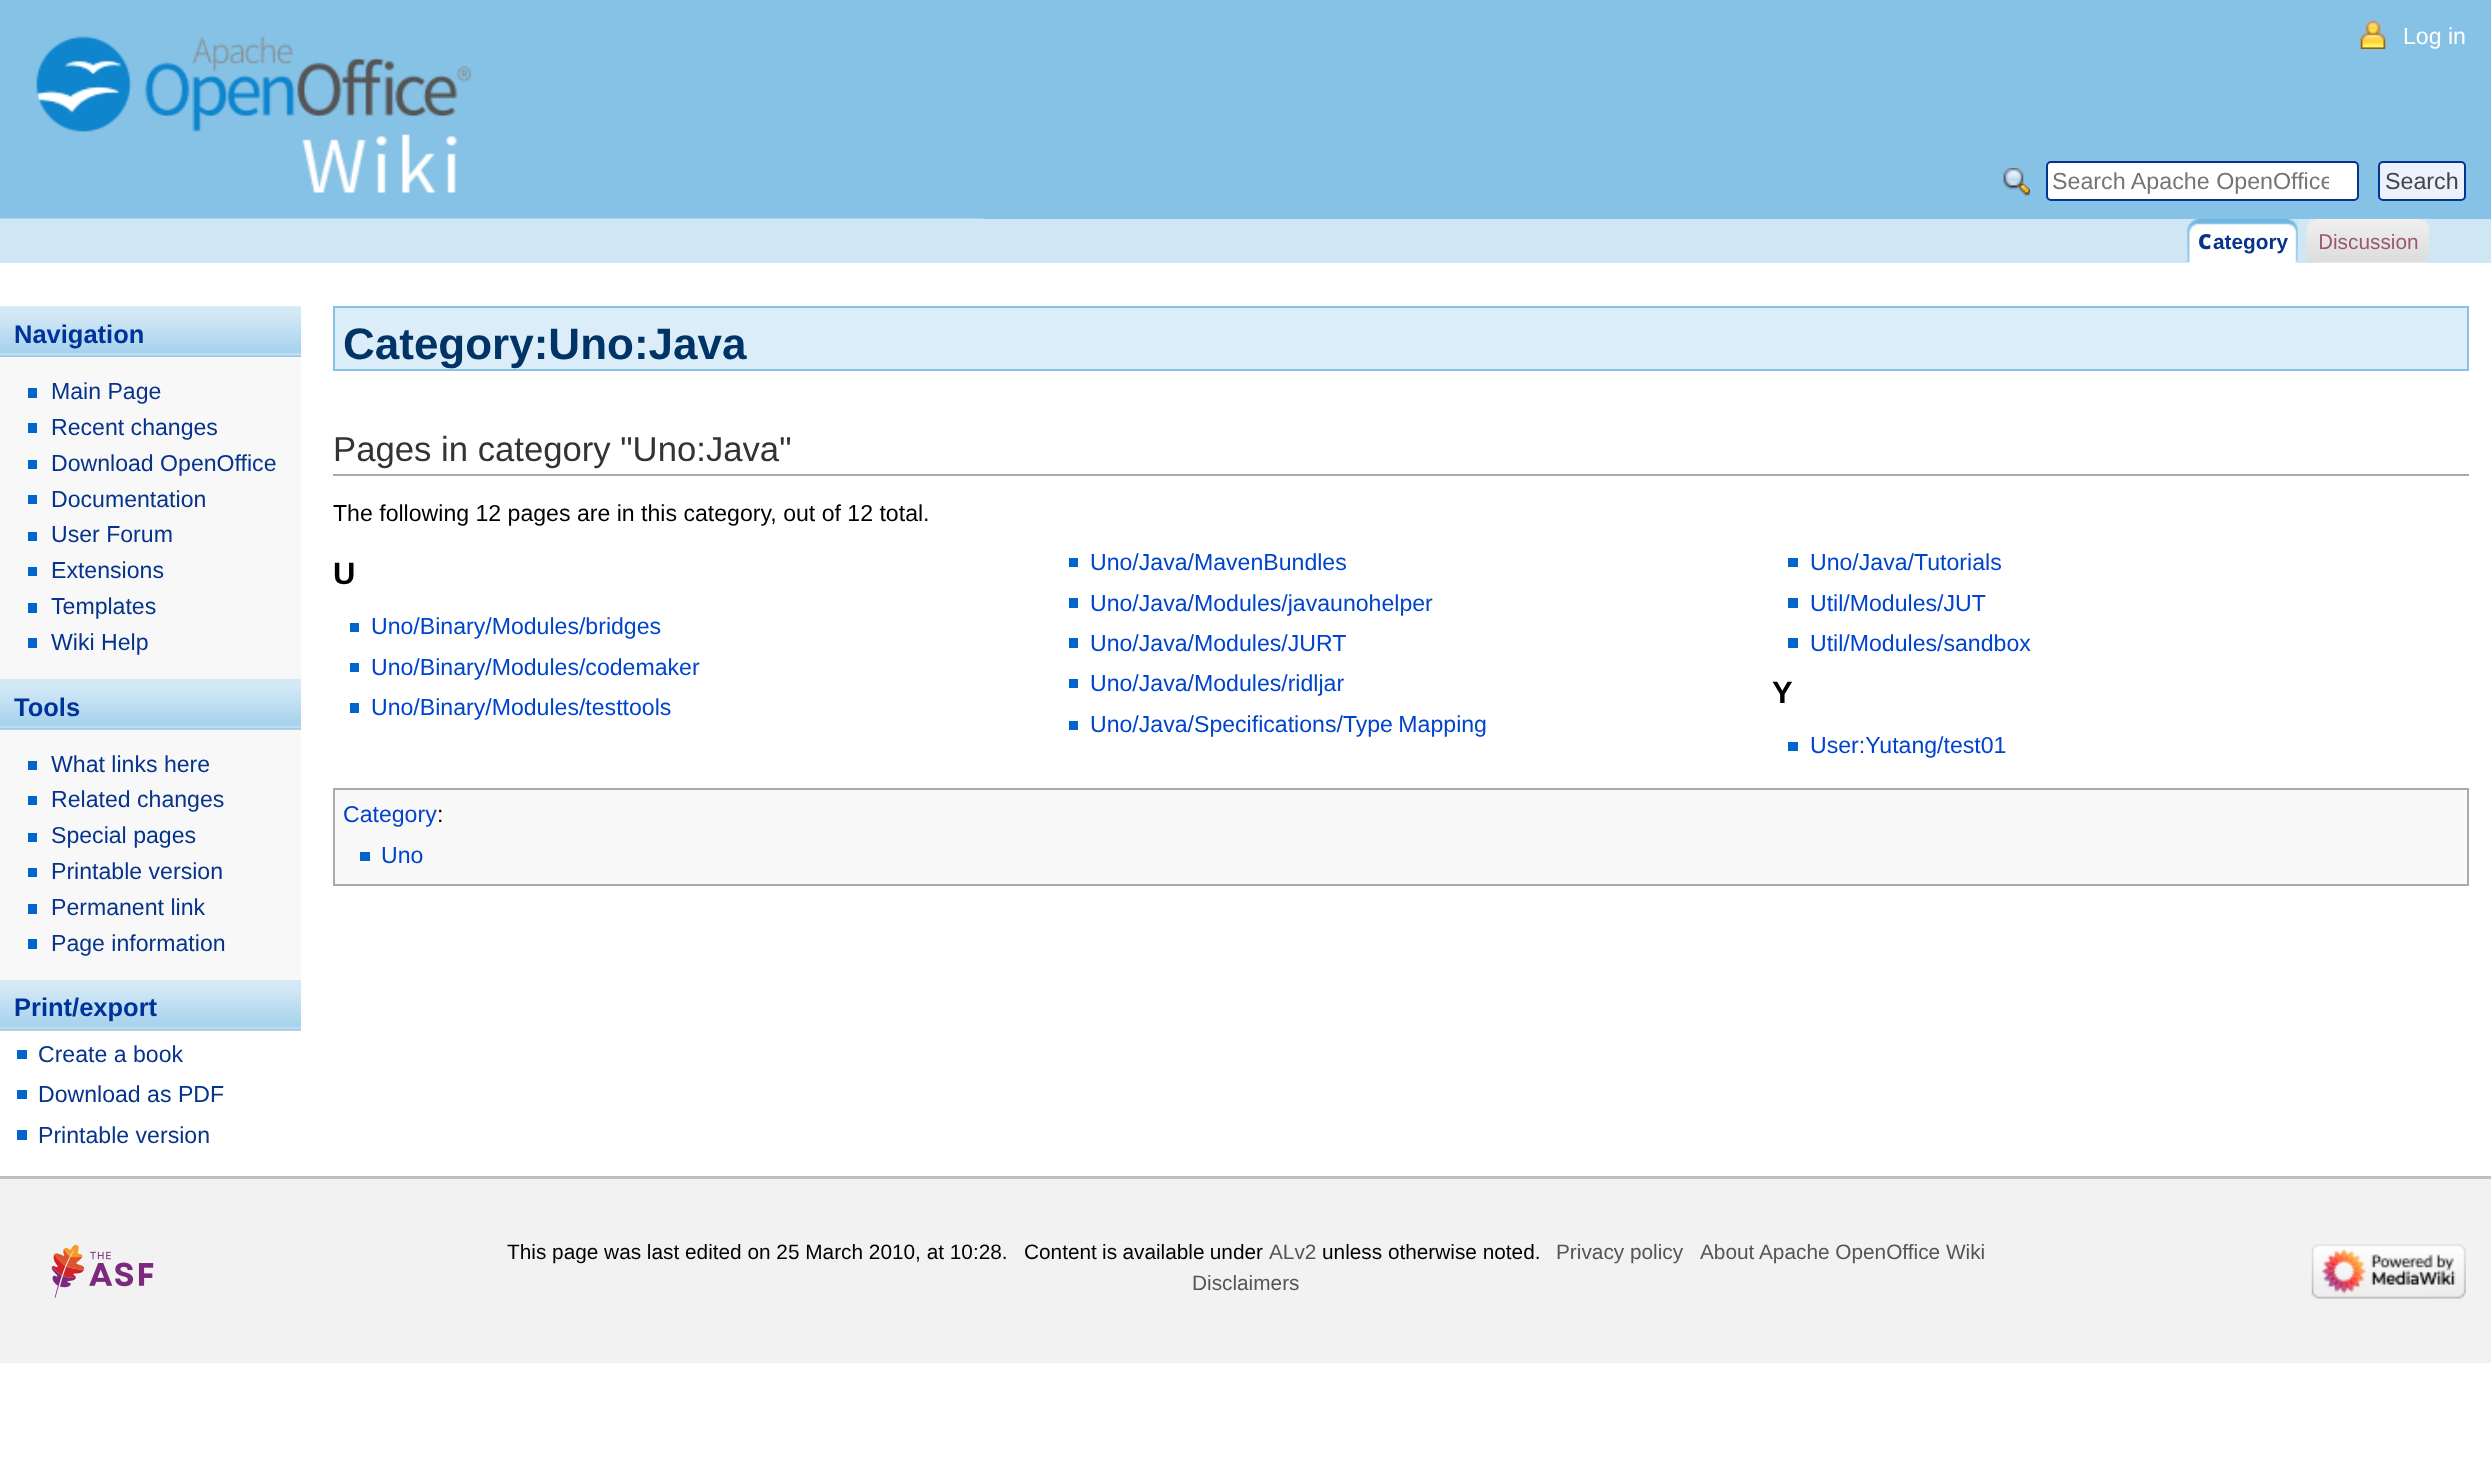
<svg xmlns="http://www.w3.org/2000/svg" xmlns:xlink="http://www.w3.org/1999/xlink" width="2491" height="1472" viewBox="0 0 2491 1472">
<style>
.cls-1{font:23.1px Liberation Sans;fill:#ffffff}
.cls-2{font:23.25px Liberation Sans;fill:#757575}
.cls-3{font:23.25px Liberation Sans;fill:#444444}
.cls-4{font:900 20.8px Noto Sans;fill:#06338b}
.cls-5{font:bold 20.8px Liberation Sans;fill:#06338b}
.cls-6{font:20.8px Noto Sans;fill:#9a576e}
.cls-7{font:20.8px Liberation Sans;fill:#9a576e}
.cls-8{font:bold 25.5px Liberation Sans;fill:#003399}
.cls-9{font:23.1px Liberation Sans;fill:#06338b}
.cls-10{font:bold 44px Liberation Sans;fill:#003366}
.cls-11{font:34.7px Liberation Sans;fill:#333333}
.cls-12{font:23.1px Liberation Sans;fill:#000000}
.cls-13{font:bold 31px Liberation Sans;fill:#000000}
.cls-14{font:23.1px Liberation Sans;fill:#0044cc}
.cls-15{font:20.8px Liberation Sans;fill:#000000}
.cls-16{font:20.8px Liberation Sans;fill:#555555}
</style>
<defs>
<clipPath id="clip1"><rect x="2053" y="168" width="276" height="26"/></clipPath>
</defs>
<rect width="100%" height="100%" fill="#ffffff"/>
<rect fill="#86c2e6" x="0" y="0" width="2491" height="219"/>
<image xlink:href="image0.png" x="0" y="36" width="984" height="183"/>
<image xlink:href="image1.png" x="2360" y="21" width="26" height="28"/>
<image xlink:href="image2.png" x="2003" y="168" width="27" height="28"/>
<rect fill="#ffffff" stroke="#06338b" stroke-width="2" x="2047" y="162" width="311" height="38" rx="4"/>
<rect fill="#ecf2fd" stroke="#06338b" stroke-width="2" x="2379" y="162" width="86" height="38" rx="4"/>
<rect fill="#cfe7f5" x="0" y="219" width="2491" height="44"/>
<image xlink:href="image3.png" x="0" y="218" width="984" height="1"/>
<rect fill="#ffffff" x="2188" y="219" width="110" height="44"/>
<image xlink:href="image4.png" x="2187" y="218" width="111" height="45"/>
<image xlink:href="image5.png" x="2287" y="218" width="11" height="45"/>
<image xlink:href="image6.png" x="2306" y="218" width="123" height="45"/>
<image xlink:href="image7.png" x="2317" y="218" width="112" height="45"/>
<image xlink:href="image8.png" x="0" y="306" width="301" height="51"/>
<rect fill="#f8f8f8" x="0" y="357" width="301" height="322"/>
<rect fill="#0066cc" x="28" y="388" width="9" height="10"/>
<rect fill="#0066cc" x="28" y="423" width="9" height="10"/>
<rect fill="#0066cc" x="28" y="460" width="9" height="9"/>
<rect fill="#0066cc" x="28" y="495" width="9" height="9"/>
<rect fill="#0066cc" x="28" y="532" width="9" height="9"/>
<rect fill="#0066cc" x="28" y="567" width="9" height="9"/>
<rect fill="#0066cc" x="28" y="603" width="9" height="10"/>
<rect fill="#0066cc" x="28" y="638" width="9" height="10"/>
<rect fill="#f8f8f8" x="0" y="729" width="301" height="251"/>
<image xlink:href="image9.png" x="0" y="679" width="301" height="51"/>
<rect fill="#0066cc" x="28" y="761" width="9" height="9"/>
<rect fill="#0066cc" x="28" y="796" width="9" height="9"/>
<rect fill="#0066cc" x="28" y="833" width="9" height="9"/>
<rect fill="#0066cc" x="28" y="868" width="9" height="9"/>
<rect fill="#0066cc" x="28" y="904" width="9" height="10"/>
<rect fill="#0066cc" x="28" y="939" width="9" height="10"/>
<image xlink:href="image9.png" x="0" y="980" width="301" height="51"/>
<rect fill="#0066cc" x="17" y="1050" width="10" height="9"/>
<rect fill="#0066cc" x="17" y="1090" width="10" height="9"/>
<rect fill="#0066cc" x="17" y="1130" width="10" height="10"/>
<rect fill="#dbedf8" stroke="#86c2e6" stroke-width="2" x="334" y="307" width="2134" height="63"/>
<rect fill="#aaaaaa" x="333" y="474" width="2136" height="2"/>
<rect fill="#0066cc" x="1069" y="558" width="9" height="9"/>
<rect fill="#0066cc" x="1788" y="558" width="10" height="9"/>
<rect fill="#0066cc" x="1069" y="598" width="9" height="10"/>
<rect fill="#0066cc" x="1788" y="598" width="10" height="10"/>
<rect fill="#0066cc" x="350" y="623" width="9" height="9"/>
<rect fill="#0066cc" x="1069" y="638" width="9" height="10"/>
<rect fill="#0066cc" x="1788" y="638" width="10" height="10"/>
<rect fill="#0066cc" x="350" y="663" width="9" height="9"/>
<rect fill="#0066cc" x="1069" y="679" width="9" height="9"/>
<rect fill="#0066cc" x="350" y="703" width="9" height="10"/>
<rect fill="#0066cc" x="1069" y="721" width="9" height="9"/>
<rect fill="#0066cc" x="1788" y="742" width="10" height="9"/>
<rect fill="#f9f9f9" stroke="#aaaaaa" stroke-width="2" x="334" y="789" width="2134" height="96"/>
<rect fill="#0066cc" x="360" y="852" width="10" height="9"/>
<rect fill="#f2f2f2" x="0" y="1179" width="2491" height="184"/>
<rect fill="#bfbfbf" x="0" y="1176" width="2491" height="3"/>
<image xlink:href="image10.png" x="51" y="1244" width="103" height="54"/>
<image xlink:href="image11.png" x="2311" y="1244" width="155" height="55"/>
<text class="cls-1" x="2403" y="44">Log in</text>
<g clip-path="url(#clip1)">
<text class="cls-2" x="2052" y="189">Search Apache OpenOffice</text>
</g>
<text class="cls-3" x="2385" y="189">Search</text>
<text class="cls-4" x="2198" y="249">C</text>
<text class="cls-5" x="2213" y="249">ategory</text>
<text class="cls-6" x="2318" y="249">D</text>
<text class="cls-7" x="2333" y="249">iscussion</text>
<text class="cls-8" x="14" y="343">Navigation</text>
<text class="cls-9"><tspan x="51" y="399">Main Page</tspan><tspan x="51" y="435">Recent changes</tspan><tspan x="51" y="471">Download OpenOffice</tspan><tspan x="51" y="507">Documentation</tspan><tspan x="51" y="542">User Forum</tspan><tspan x="51" y="578">Extensions</tspan><tspan x="51" y="614">Templates</tspan><tspan x="51" y="650">Wiki Help</tspan></text>
<text class="cls-8" x="14" y="716">Tools</text>
<text class="cls-9"><tspan x="51" y="772">What links here</tspan><tspan x="51" y="807">Related changes</tspan><tspan x="51" y="843">Special pages</tspan><tspan x="51" y="879">Printable version</tspan><tspan x="51" y="915">Permanent link</tspan><tspan x="51" y="951">Page information</tspan></text>
<text class="cls-8" x="14" y="1016">Print/export</text>
<text class="cls-9"><tspan x="38" y="1062">Create a book</tspan><tspan x="38" y="1102">Download as PDF</tspan><tspan x="38" y="1143">Printable version</tspan></text>
<text class="cls-10" x="343" y="359">Category:Uno:Java</text>
<text class="cls-11" x="333" y="461">Pages in category "Uno:Java"</text>
<text class="cls-12" x="333" y="521">The following 12 pages are in this category, out of 12 total.</text>
<text class="cls-13" x="333" y="584">U</text>
<text class="cls-14" x="1090" y="570">Uno/Java/MavenBundles</text>
<text class="cls-14" x="1810" y="570">Uno/Java/Tutorials</text>
<text class="cls-14" x="1090" y="611">Uno/Java/Modules/javaunohelper</text>
<text class="cls-14" x="1810" y="611">Util/Modules/JUT</text>
<text class="cls-14" x="371" y="634">Uno/Binary/Modules/bridges</text>
<text class="cls-14" x="1090" y="651">Uno/Java/Modules/JURT</text>
<text class="cls-14" x="1810" y="651">Util/Modules/sandbox</text>
<text class="cls-14" x="371" y="675">Uno/Binary/Modules/codemaker</text>
<text class="cls-14" x="1090" y="691">Uno/Java/Modules/ridljar</text>
<text class="cls-14" x="371" y="715">Uno/Binary/Modules/testtools</text>
<text class="cls-14" x="1090" y="732" word-spacing="-1">Uno/Java/Specifications/Type Mapping</text>
<text class="cls-13" x="1772" y="703">Y</text>
<text class="cls-14" x="1810" y="753">User:Yutang/test01</text>
<text class="cls-14" x="343" y="822">Category</text>
<text class="cls-12" x="437" y="822">:</text>
<text class="cls-14" x="381" y="863">Uno</text>
<text class="cls-15" x="507" y="1259">This page was last edited on 25 March 2010, at 10:28.</text>
<text class="cls-15" x="1024" y="1259" word-spacing="-0.5">Content is available under</text>
<text class="cls-16" x="1269" y="1259">ALv2</text>
<text class="cls-15" x="1322" y="1259">unless otherwise noted.</text>
<text class="cls-16" x="1556" y="1259">Privacy policy</text>
<text class="cls-16" x="1700" y="1259">About Apache OpenOffice Wiki</text>
<text class="cls-16" x="1192" y="1290">Disclaimers</text>
</svg>
